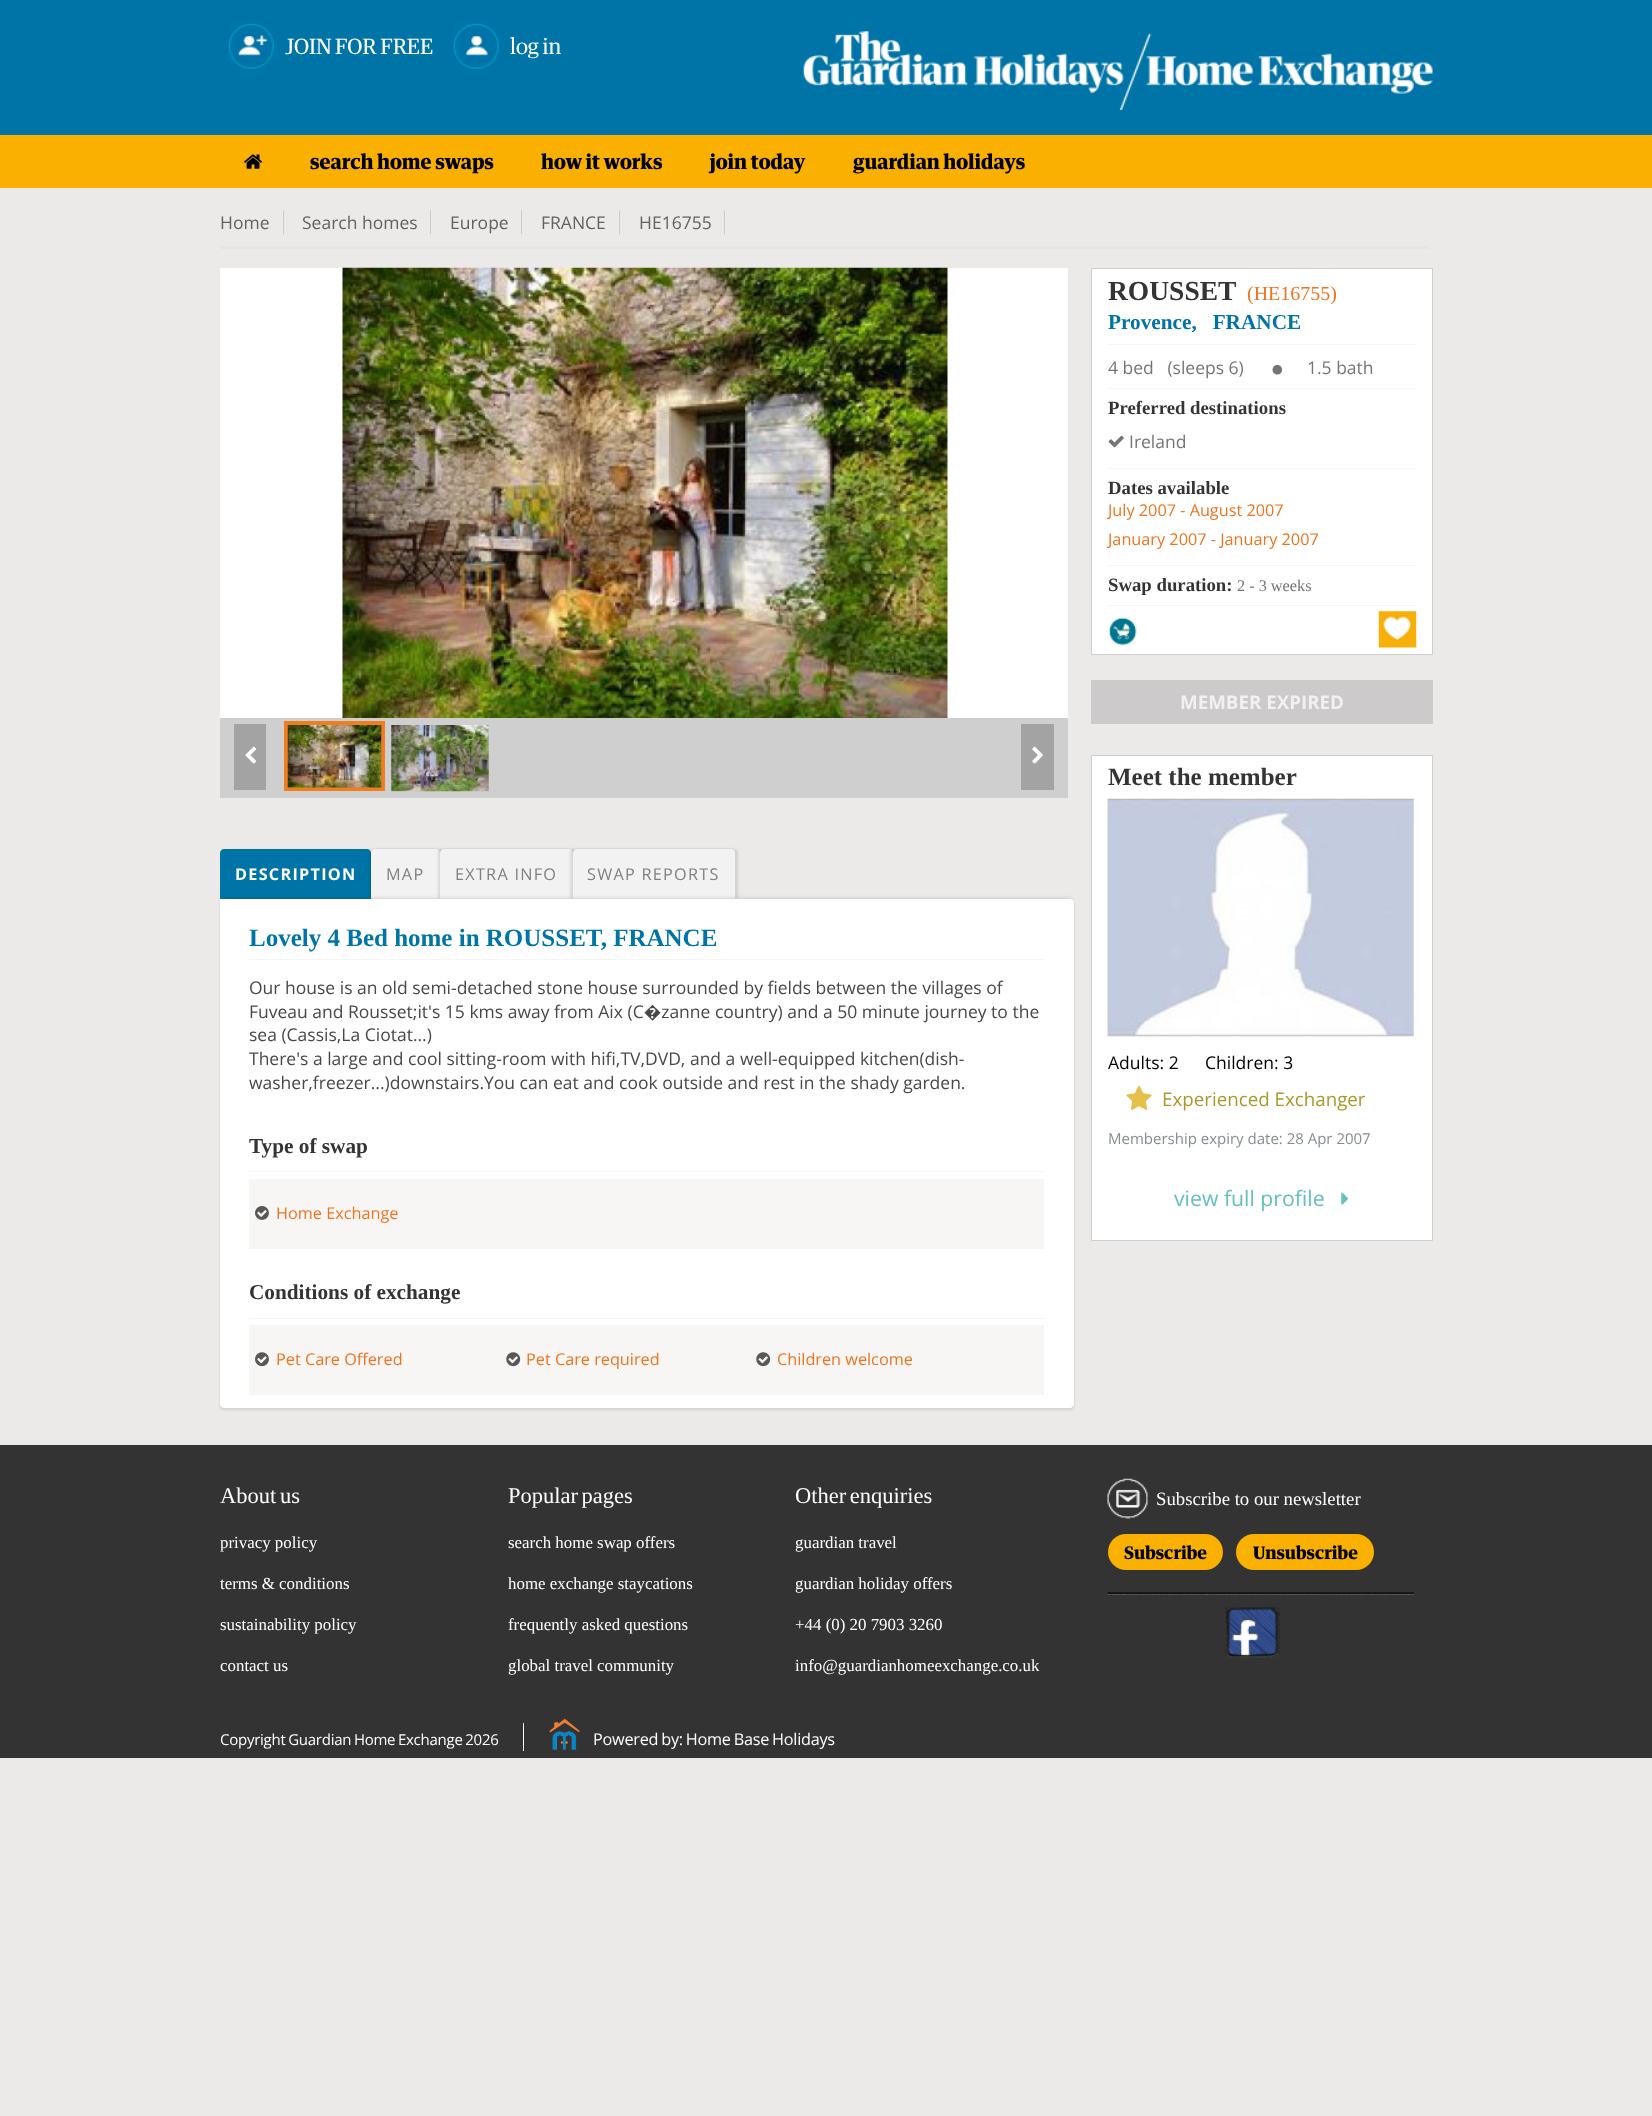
<svg xmlns="http://www.w3.org/2000/svg" xmlns:xlink="http://www.w3.org/1999/xlink" width="1652" height="2116" viewBox="0 0 1652 2116">
<style>
.cls-1{font:21.25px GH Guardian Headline;fill:#ffffff}
.cls-2{font:bold 20px GH Guardian Headline;fill:#000000}
.cls-3{font:17.5px Open Sans;fill:#636161}
.cls-4{font:bold 16.25px Open Sans;letter-spacing:1.25px;fill:#ffffff}
.cls-5{font:16.25px Open Sans;letter-spacing:1.25px;fill:#818080}
.cls-6{font:bold 25px Liberation Serif;fill:#0074a6}
.cls-7{font:17.5px Open Sans;fill:#494848}
.cls-8{font:bold 21.25px Liberation Serif;fill:#343434}
.cls-9{font:16.25px Open Sans;fill:#ee7420}
.cls-10{font:bold 27.5px Liberation Serif;fill:#343434}
.cls-11{font:20px Liberation Serif;fill:#ee7420}
.cls-12{font:bold 21.25px Liberation Serif;fill:#0074a6}
.cls-13{font:17.5px Open Sans;fill:#757575}
.cls-14{font:bold 18.75px Liberation Serif;fill:#343434}
.cls-15{font:16.25px Liberation Serif;fill:#757575}
.cls-16{font:bold 18.75px Open Sans;fill:#f1f1f1}
.cls-17{font:bold 25px Liberation Serif;fill:#343434}
.cls-18{font:17.5px Open Sans;fill:#000000}
.cls-19{font:18.75px Open Sans;fill:#aa982a}
.cls-20{font:15px Open Sans;fill:#868d90}
.cls-21{font:21.25px Open Sans;fill:#64c0ba}
.cls-22{font:22.5px Liberation Serif;fill:#ffffff}
.cls-23{font:16.9px Liberation Serif;fill:#ffffff}
.cls-24{font:18.75px Liberation Serif;fill:#ffffff}
.cls-25{font:bold 17.5px GH Guardian Headline;fill:#000000}
.cls-26{font:15px Open Sans;letter-spacing:-0.25px;fill:#ffffff}
.cls-27{font:16.25px Open Sans;letter-spacing:-0.25px;fill:#ffffff}
</style>
<rect width="100%" height="100%" fill="#ebeae8"/>
<rect fill="#0074a6" x="0" y="0" width="1652" height="135"/>
<image xlink:href="image0.png" x="228" y="23" width="46" height="46"/>
<image xlink:href="image1.png" x="453" y="23" width="46" height="46"/>
<image xlink:href="image2.png" x="803" y="31" width="630" height="79"/>
<rect fill="#f9b000" x="0" y="135" width="1652" height="53"/>
<image xlink:href="image3.png" x="244" y="154" width="18" height="15"/>
<rect fill="#cccccc" x="283" y="210" width="1" height="24"/>
<rect fill="#cccccc" x="430" y="210" width="1" height="24"/>
<rect fill="#cccccc" x="521" y="210" width="1" height="24"/>
<rect fill="#cccccc" x="619" y="210" width="1" height="24"/>
<rect fill="#cccccc" x="724" y="210" width="1" height="24"/>
<rect fill="#e6e5e4" x="220" y="246" width="1209" height="3"/>
<rect fill="#ffffff" x="220" y="268" width="848" height="450"/>
<image xlink:href="image4.png" x="342" y="267" width="606" height="451"/>
<rect fill="#cfcfcf" x="220" y="718" width="848" height="80"/>
<rect fill="#a3a3a3" x="234" y="724" width="32" height="66"/>
<image xlink:href="image5.png" x="245" y="746" width="12" height="18"/>
<rect fill="none" stroke="#f07d1e" stroke-width="4" x="286" y="723" width="97" height="66"/>
<image xlink:href="image6.png" x="287" y="725" width="95" height="63"/>
<image xlink:href="image7.png" x="391" y="725" width="98" height="67"/>
<rect fill="#a3a3a3" x="1021" y="724" width="33" height="66"/>
<image xlink:href="image8.png" x="1032" y="746" width="11" height="18"/>
<path fill="#0074a6" d="M224 849H367C369 849 371 851 371 853V899H220V853C220 851 222 849 224 849Z"/>
<rect fill="#000000" fill-opacity="0.1" filter="blur(1px)" x="369" y="849" width="69" height="50" rx="4"/>
<rect fill="#000000" fill-opacity="0.1" filter="blur(1px)" x="374" y="849" width="69" height="50" rx="4"/>
<path fill="#f3f2f2" d="M375 849H436C438 849 440 851 440 853V899H371V853C371 851 373 849 375 849Z"/>
<rect fill="#000000" fill-opacity="0.1" filter="blur(1px)" x="438" y="849" width="132" height="50" rx="4"/>
<rect fill="#000000" fill-opacity="0.1" filter="blur(1px)" x="443" y="849" width="132" height="50" rx="4"/>
<path fill="#f3f2f2" d="M444 849H569C571 849 573 851 573 853V899H440V853C440 851 442 849 444 849Z"/>
<rect fill="#000000" fill-opacity="0.1" filter="blur(1px)" x="570" y="849" width="163" height="50" rx="4"/>
<rect fill="#000000" fill-opacity="0.1" filter="blur(1px)" x="575" y="849" width="163" height="50" rx="4"/>
<path fill="#f3f2f2" d="M577 849H731C733 849 735 851 735 853V899H573V853C573 851 575 849 577 849Z"/>
<rect fill="#000000" fill-opacity="0.1" filter="blur(1px)" x="220" y="901" width="854" height="509" rx="4"/>
<rect fill="#000000" fill-opacity="0.2" filter="blur(2px)" x="223" y="899" width="848" height="504" rx="1"/>
<path fill="#ffffff" d="M220 899H1070C1072 899 1074 901 1074 903V1404C1074 1406 1072 1408 1070 1408H224C222 1408 220 1406 220 1404Z"/>
<rect fill="#f5f5f5" x="249" y="959" width="795" height="1"/>
<rect fill="#f5f5f5" x="249" y="1171" width="795" height="1"/>
<rect fill="#f8f6f5" x="249" y="1179" width="795" height="70"/>
<image xlink:href="image9.png" x="255" y="1206" width="14" height="14"/>
<rect fill="#f5f5f5" x="249" y="1318" width="795" height="1"/>
<rect fill="#f8f6f5" x="249" y="1325" width="795" height="70"/>
<image xlink:href="image10.png" x="255" y="1352" width="14" height="15"/>
<image xlink:href="image11.png" x="506" y="1352" width="15" height="15"/>
<image xlink:href="image11.png" x="756" y="1352" width="15" height="15"/>
<rect fill="#ffffff" stroke="#cfcfcf" x="1091.5" y="268.5" width="341" height="386"/>
<rect fill="#f5f5f5" x="1108" y="344" width="308" height="1"/>
<image xlink:href="image12.png" x="1272" y="364" width="11" height="11"/>
<rect fill="#f5f5f5" x="1108" y="388" width="308" height="1"/>
<image xlink:href="image13.png" x="1108" y="435" width="16" height="13"/>
<rect fill="#f5f5f5" x="1108" y="468" width="308" height="1"/>
<rect fill="#f5f5f5" x="1108" y="565" width="308" height="1"/>
<rect fill="#f5f5f5" x="1108" y="605" width="308" height="1"/>
<image xlink:href="image14.png" x="1108" y="617" width="29" height="29"/>
<image xlink:href="image15.png" x="1378" y="611" width="39" height="37"/>
<rect fill="#cccaca" x="1091" y="680" width="342" height="44"/>
<rect fill="#ffffff" stroke="#cfcfcf" x="1091.5" y="755.5" width="341" height="485"/>
<image xlink:href="image16.png" x="1107" y="798" width="307" height="240"/>
<image xlink:href="image17.png" x="1126" y="1085" width="26" height="25"/>
<image xlink:href="image18.png" x="1341" y="1192" width="7" height="13"/>
<rect fill="#333333" x="0" y="1445" width="1652" height="313"/>
<image xlink:href="image19.png" x="1107" y="1478" width="41" height="41"/>
<rect fill="#f9b000" x="1108" y="1534" width="115" height="36" rx="18"/>
<rect fill="#f9b000" x="1236" y="1534" width="138" height="36" rx="18"/>
<image xlink:href="image20.png" x="1107" y="1592" width="308" height="3"/>
<image xlink:href="image21.png" x="1225" y="1607" width="55" height="51"/>
<rect fill="#ffffff" x="523" y="1723" width="1" height="28"/>
<image xlink:href="image22.png" x="549" y="1718" width="31" height="32"/>
<text class="cls-1" x="285" y="54">JOIN FOR FREE</text>
<text class="cls-1" x="510" y="54">log in</text>
<text class="cls-2" x="310" y="169">search home swaps</text>
<text class="cls-2" x="541" y="169">how it works</text>
<text class="cls-2" x="710" y="169">join today</text>
<text class="cls-2" x="853" y="169">guardian holidays</text>
<text class="cls-3" x="220" y="229">Home</text>
<text class="cls-3" x="302" y="229">Search homes</text>
<text class="cls-3" x="450" y="229">Europe</text>
<text class="cls-3" x="541" y="229">FRANCE</text>
<text class="cls-3" x="639" y="229">HE16755</text>
<text class="cls-4" x="235" y="880">DESCRIPTION</text>
<text class="cls-5" x="386" y="880">MAP</text>
<text class="cls-5" x="455" y="880">EXTRA INFO</text>
<text class="cls-5" x="587" y="880">SWAP REPORTS</text>
<text class="cls-6" x="249" y="946">Lovely 4 Bed home in ROUSSET, FRANCE</text>
<text class="cls-7"><tspan x="249" y="994">Our house is an old semi-detached stone house surrounded by fields between the villages of</tspan><tspan x="249" y="1018">Fuveau and Rousset;it's 15 kms away from Aix (C�zanne country) and a 50 minute journey to the</tspan><tspan x="249" y="1041">sea (Cassis,La Ciotat...)</tspan><tspan x="249" y="1065">There's a large and cool sitting-room with hifi,TV,DVD, and a well-equipped kitchen(dish-</tspan><tspan x="249" y="1089">washer,freezer...)downstairs.You can eat and cook outside and rest in the shady garden.</tspan></text>
<text class="cls-8" x="249" y="1153">Type of swap</text>
<text class="cls-9" x="276" y="1219">Home Exchange</text>
<text class="cls-8" x="249" y="1299">Conditions of exchange</text>
<text class="cls-9" x="276" y="1365">Pet Care Offered</text>
<text class="cls-9" x="526" y="1365">Pet Care required</text>
<text class="cls-9" x="777" y="1365">Children welcome</text>
<text class="cls-10" x="1108" y="300">ROUSSET</text>
<text class="cls-11" x="1247" y="300">(HE16755)</text>
<text class="cls-12" xml:space="preserve" x="1108" y="329">Provence,   FRANCE</text>
<text class="cls-13" xml:space="preserve" x="1108" y="374">4 bed   (sleeps 6)</text>
<text class="cls-13" x="1307" y="374">1.5 bath</text>
<text class="cls-14" x="1108" y="414">Preferred destinations</text>
<text class="cls-13" x="1129" y="448">Ireland</text>
<text class="cls-14" x="1108" y="494">Dates available</text>
<text class="cls-9"><tspan x="1108" y="516">July 2007 - August 2007</tspan><tspan x="1108" y="545">January 2007 - January 2007</tspan></text>
<text class="cls-14" x="1108" y="591">Swap duration:</text>
<text class="cls-15" x="1237" y="591">2 - 3 weeks</text>
<text class="cls-16" x="1180" y="709">MEMBER EXPIRED</text>
<text class="cls-17" x="1108" y="785">Meet the member</text>
<text class="cls-18" x="1108" y="1069">Adults: 2</text>
<text class="cls-18" x="1205" y="1069">Children: 3</text>
<text class="cls-19" x="1162" y="1106">Experienced Exchanger</text>
<text class="cls-20" x="1108" y="1144">Membership expiry date: 28 Apr 2007</text>
<text class="cls-21" x="1174" y="1206">view full profile</text>
<text class="cls-22" x="220" y="1503" word-spacing="-2">About us</text>
<text class="cls-23" x="220" y="1548">privacy policy</text>
<text class="cls-23" x="220" y="1589">terms &amp; conditions</text>
<text class="cls-23" x="220" y="1630">sustainability policy</text>
<text class="cls-23" x="220" y="1671">contact us</text>
<text class="cls-22" x="508" y="1503" word-spacing="-2">Popular pages</text>
<text class="cls-23" x="508" y="1548">search home swap offers</text>
<text class="cls-23" x="508" y="1589">home exchange staycations</text>
<text class="cls-23" x="508" y="1630">frequently asked questions</text>
<text class="cls-23" x="508" y="1671">global travel community</text>
<text class="cls-22" x="795" y="1503" word-spacing="-2">Other enquiries</text>
<text class="cls-23" x="795" y="1548">guardian travel</text>
<text class="cls-23" x="795" y="1589">guardian holiday offers</text>
<text class="cls-23" x="795" y="1630">+44 (0) 20 7903 3260</text>
<text class="cls-23" x="795" y="1671">info@guardianhomeexchange.co.uk</text>
<text class="cls-24" x="1156" y="1505">Subscribe to our newsletter</text>
<text class="cls-25" x="1124" y="1559">Subscribe</text>
<text class="cls-25" x="1253" y="1559">Unsubscribe</text>
<text class="cls-26" x="220" y="1745" word-spacing="-1">Copyright Guardian Home Exchange 2026</text>
<text class="cls-27" x="593" y="1745" word-spacing="-1">Powered by: Home Base Holidays</text>
</svg>
